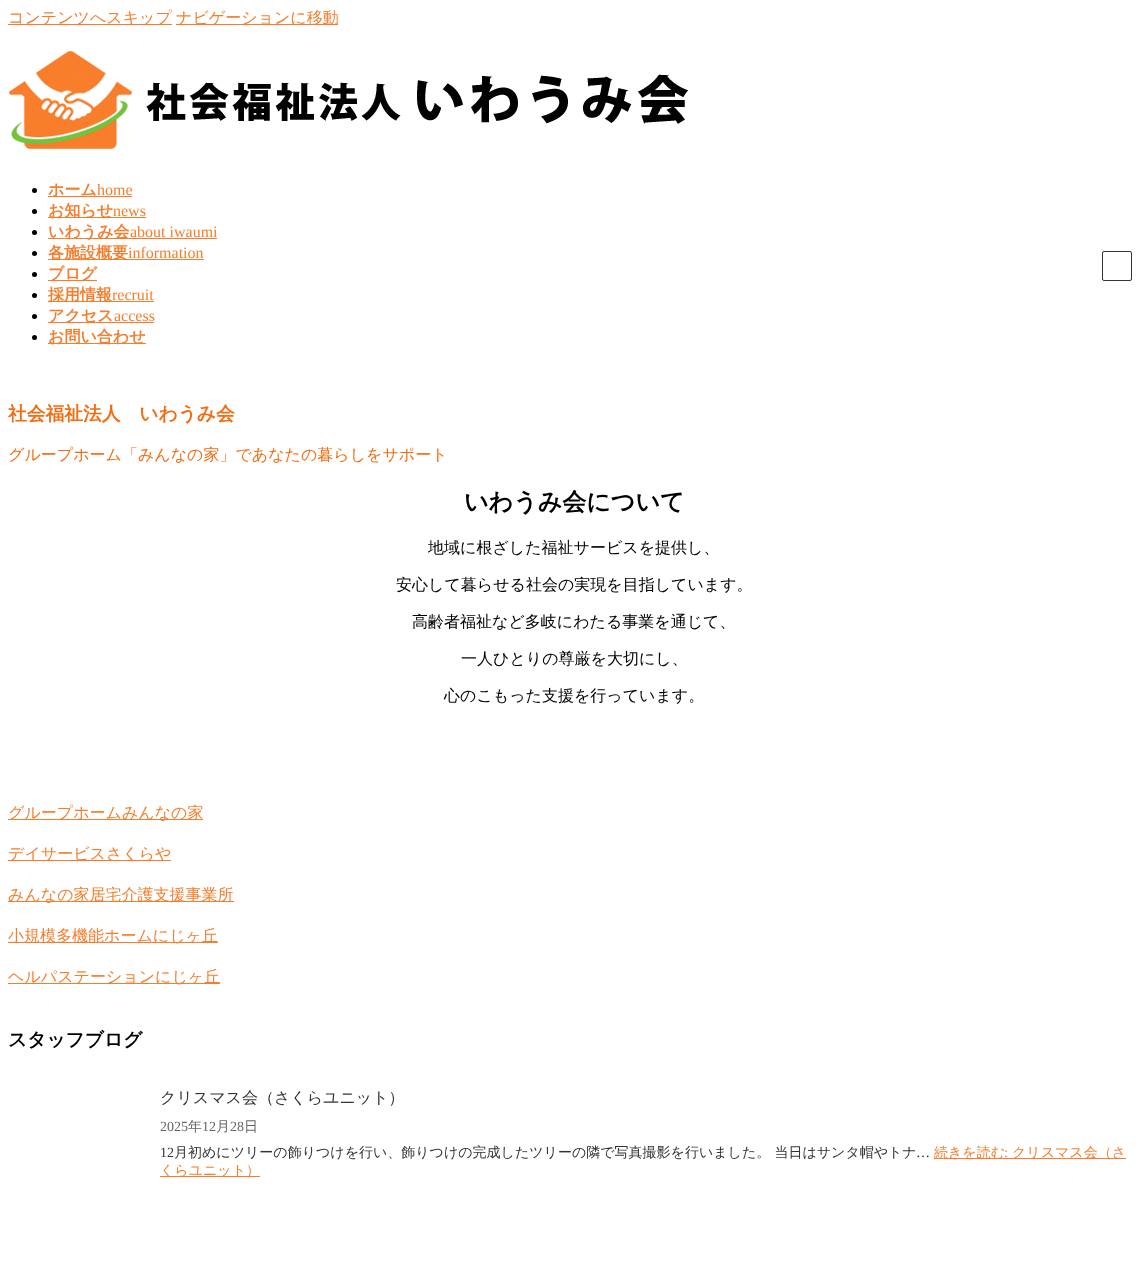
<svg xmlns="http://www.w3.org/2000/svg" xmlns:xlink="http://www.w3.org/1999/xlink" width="1148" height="1265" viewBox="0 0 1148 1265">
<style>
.cls-1{font:500 16px WenQuanYi Zen Hei;fill:#f67d2c}
.cls-2{font:bold 16px WenQuanYi Zen Hei;fill:#f67d2c}
.cls-3{font:16px Liberation Serif;fill:#f67d2c}
.cls-4{font:bold 18.75px WenQuanYi Zen Hei;fill:#f46c11}
.cls-5{font:500 16px WenQuanYi Zen Hei;fill:#f46c11}
.cls-6{font:bold 24px WenQuanYi Zen Hei;fill:#000000}
.cls-7{font:500 16px WenQuanYi Zen Hei;fill:#000000}
.cls-8{font:bold 18.75px WenQuanYi Zen Hei;fill:#000000}
.cls-9{font:500 16px WenQuanYi Zen Hei;fill:#333333}
.cls-10{font:14px Liberation Serif;fill:#666666}
.cls-11{font:500 14px WenQuanYi Zen Hei;fill:#666666}
.cls-12{font:14px Liberation Serif;fill:#333333}
.cls-13{font:500 14px WenQuanYi Zen Hei;fill:#333333}
.cls-14{font:500 14px WenQuanYi Zen Hei;fill:#f67d2c}
.cls-15{font:14px Liberation Serif;fill:#f67d2c}
</style>
<rect width="100%" height="100%" fill="#ffffff"/>
<rect fill="#f67d2c" x="8" y="24" width="164" height="1"/>
<rect fill="#f67d2c" x="176" y="24" width="162" height="1"/>
<image xlink:href="image0.png" x="9" y="51" width="679" height="98"/>
<circle fill="#000000" cx="34.5" cy="190.5" r="2.5"/>
<rect fill="#f67d2c" x="48" y="196" width="84" height="1"/>
<circle fill="#000000" cx="34.5" cy="211.5" r="2.5"/>
<rect fill="#f67d2c" x="48" y="217" width="98" height="1"/>
<circle fill="#000000" cx="34.5" cy="232.5" r="2.5"/>
<rect fill="#f67d2c" x="48" y="238" width="169" height="1"/>
<circle fill="#000000" cx="34.5" cy="253.5" r="2.5"/>
<rect fill="#f67d2c" x="48" y="259" width="156" height="1"/>
<rect fill="none" stroke="#333333" x="1102.5" y="251.5" width="29" height="29" rx="1.5"/>
<circle fill="#000000" cx="34.5" cy="274.5" r="2.5"/>
<rect fill="#f67d2c" x="48" y="280" width="49" height="1"/>
<circle fill="#000000" cx="34.5" cy="295.5" r="2.5"/>
<rect fill="#f67d2c" x="48" y="301" width="106" height="1"/>
<circle fill="#000000" cx="34.5" cy="316.5" r="2.5"/>
<rect fill="#f67d2c" x="48" y="322" width="106" height="1"/>
<circle fill="#000000" cx="34.5" cy="337.5" r="2.5"/>
<rect fill="#f67d2c" x="48" y="343" width="98" height="1"/>
<rect fill="#f67d2c" x="8" y="819" width="195" height="1"/>
<rect fill="#f67d2c" x="8" y="860" width="163" height="1"/>
<rect fill="#f67d2c" x="8" y="901" width="226" height="1"/>
<rect fill="#f67d2c" x="8" y="942" width="210" height="1"/>
<rect fill="#f67d2c" x="8" y="983" width="212" height="1"/>
<rect fill="#f67d2c" x="934" y="1158" width="192" height="1"/>
<rect fill="#f67d2c" x="160" y="1176" width="100" height="1"/>
<text class="cls-1" x="8" y="23">コンテンツへスキップ</text>
<text class="cls-1" x="176" y="23">ナビゲーションに移動</text>
<text class="cls-2" x="48" y="195">ホーム</text>
<text class="cls-3" x="97" y="195">home</text>
<text class="cls-2" x="48" y="216">お知らせ</text>
<text class="cls-3" x="113" y="216">news</text>
<text class="cls-2" x="48" y="237">いわうみ会</text>
<text class="cls-3" x="130" y="237">about iwaumi</text>
<text class="cls-2" x="48" y="258">各施設概要</text>
<text class="cls-3" x="128" y="258">information</text>
<text class="cls-2"><tspan x="48" y="279">ブログ</tspan><tspan x="48" y="300">採用情報</tspan></text>
<text class="cls-3" x="112" y="300">recruit</text>
<text class="cls-2" x="48" y="321">アクセス</text>
<text class="cls-3" x="114" y="321">access</text>
<text class="cls-2" x="48" y="342">お問い合わせ</text>
<text class="cls-4" x="8" y="420">社会福祉法人　いわうみ会</text>
<text class="cls-5" x="8" y="460">グループホーム「みんなの家」であなたの暮らしをサポート</text>
<text class="cls-6" x="464" y="510">いわうみ会について</text>
<text class="cls-7" x="428" y="553">地域に根ざした福祉サービスを提供し、</text>
<text class="cls-7" x="396" y="590">安心して暮らせる社会の実現を目指しています。</text>
<text class="cls-7" x="412" y="627">高齢者福祉など多岐にわたる事業を通じて、</text>
<text class="cls-7" x="461" y="664">一人ひとりの尊厳を大切にし、</text>
<text class="cls-7" x="444" y="701">心のこもった支援を行っています。</text>
<text class="cls-1" x="8" y="818">グループホームみんなの家</text>
<text class="cls-1" x="8" y="859">デイサービスさくらや</text>
<text class="cls-1" x="8" y="900">みんなの家居宅介護支援事業所</text>
<text class="cls-1" x="8" y="941">小規模多機能ホームにじヶ丘</text>
<text class="cls-1" x="8" y="982">ヘルパステーションにじヶ丘</text>
<text class="cls-8" x="8" y="1046">スタッフブログ</text>
<text class="cls-9" x="160" y="1103">クリスマス会（さくらユニット）</text>
<text class="cls-10" x="160" y="1131">2025</text>
<text class="cls-11" x="188" y="1131">年</text>
<text class="cls-10" x="202" y="1131">12</text>
<text class="cls-11" x="216" y="1131">月</text>
<text class="cls-10" x="230" y="1131">28</text>
<text class="cls-11" x="244" y="1131">日</text>
<text class="cls-12" x="160" y="1157">12</text>
<text class="cls-13" x="174" y="1157">月初めにツリーの飾りつけを行い、飾りつけの完成したツリーの隣で写真撮影を行いました。 当日はサンタ帽やトナ</text>
<text class="cls-12" x="916" y="1157">…</text>
<text class="cls-14" x="934" y="1157">続きを読む</text>
<text class="cls-15" x="1004" y="1157">:</text>
<text class="cls-14" x="1012" y="1157">クリスマス会（さ</text>
<text class="cls-14" x="160" y="1175">くらユニット）</text>
</svg>
